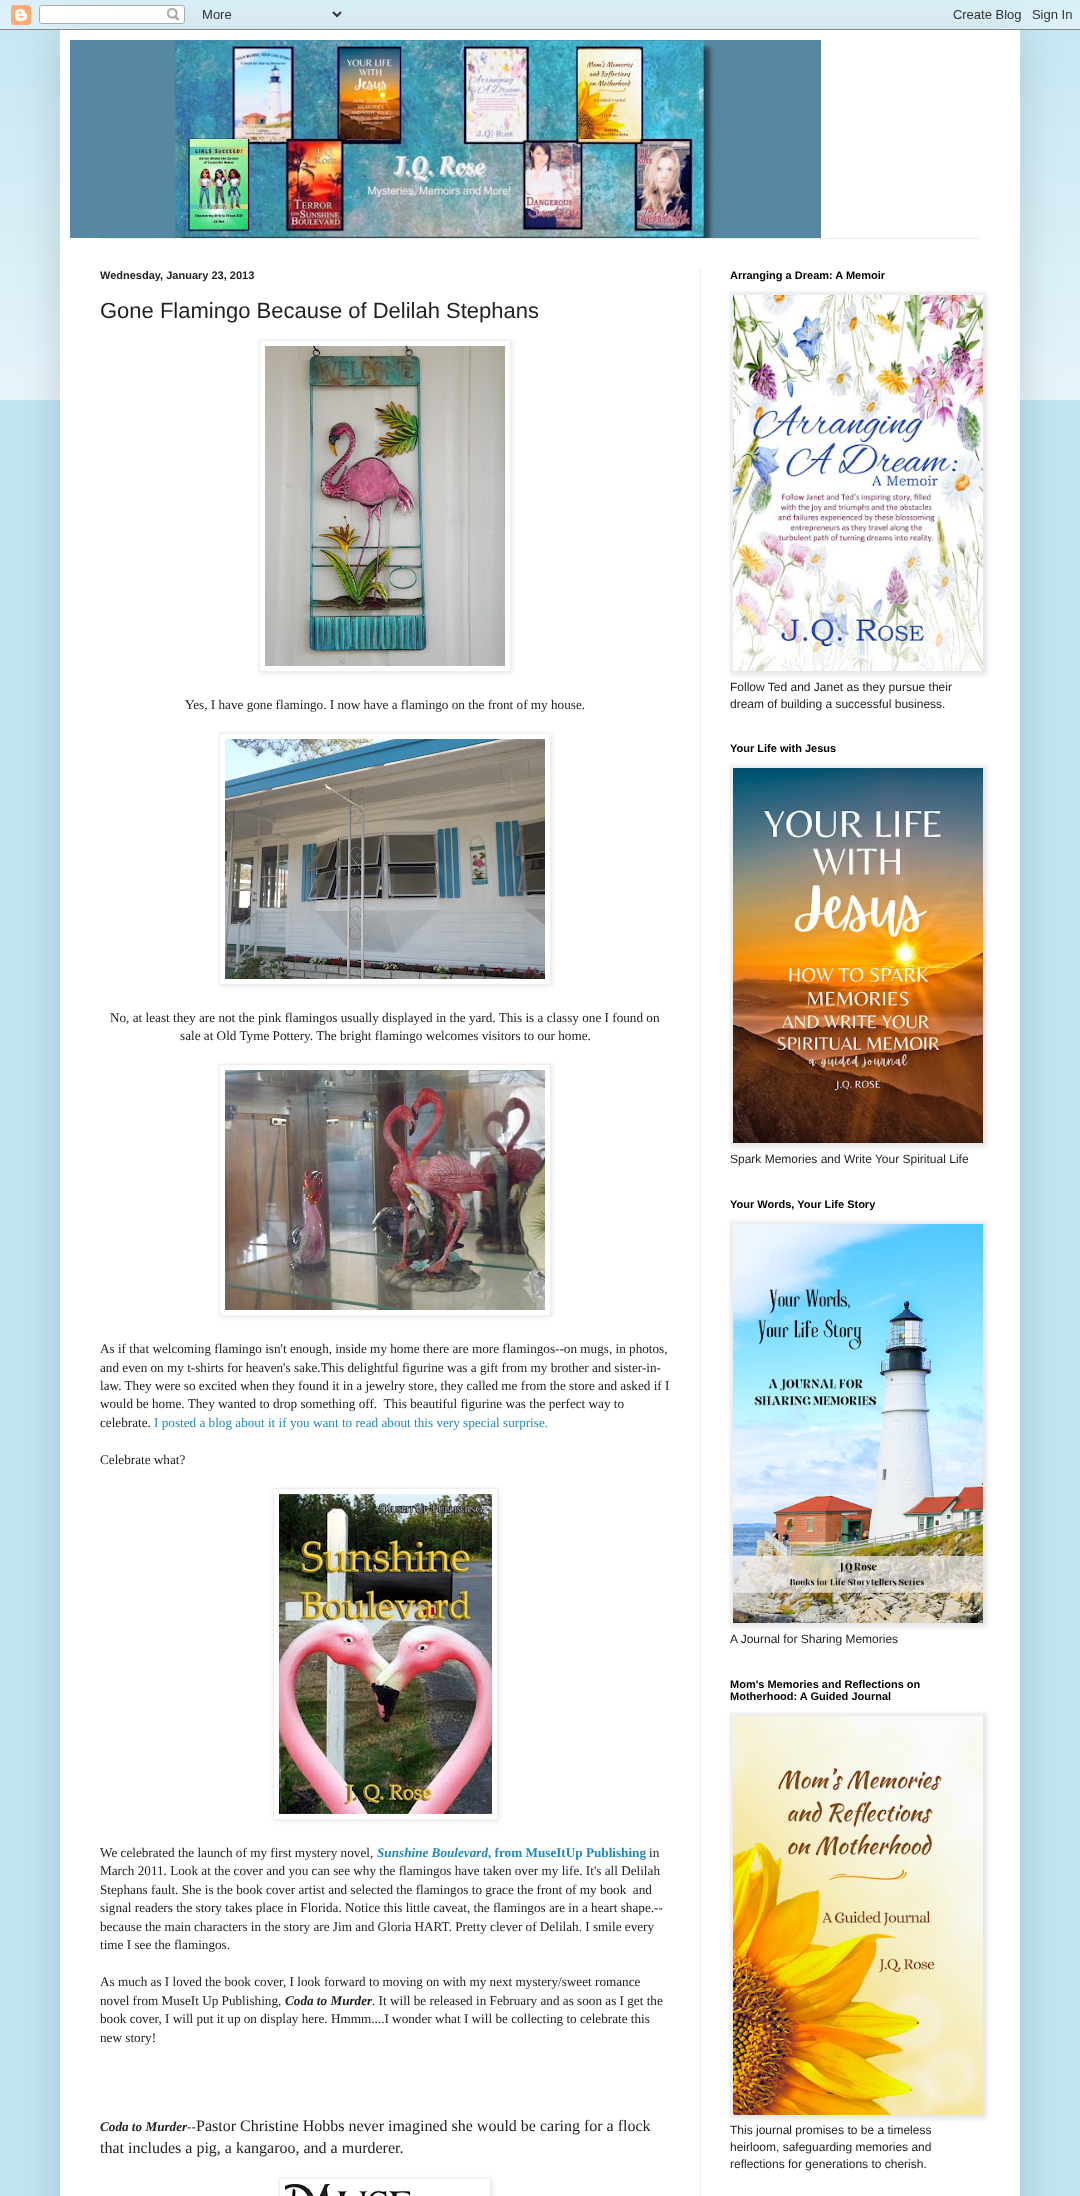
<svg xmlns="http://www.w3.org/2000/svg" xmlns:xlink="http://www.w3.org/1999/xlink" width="1080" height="2196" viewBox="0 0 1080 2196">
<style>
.cls-1{font:bold 11px Liberation Sans;fill:#222222}
.cls-2{font:22px Liberation Sans;fill:#222222}
.cls-3{font:13.2px Liberation Serif;fill:#222222}
.cls-4{font:13.2px Liberation Serif;fill:#2288bb}
.cls-5{font:italic bold 13.2px Liberation Serif;fill:#2288bb}
.cls-6{font:bold 13.2px Liberation Serif;fill:#2288bb}
.cls-7{font:italic bold 13.2px Liberation Serif;fill:#222222}
.cls-8{font:16px Liberation Serif;fill:#222222}
.cls-9{font:bold 11px Liberation Sans;fill:#000000}
.cls-10{font:12px Liberation Sans;fill:#222222}
</style>
<defs>
<clipPath id="clip1"><path d="M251 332H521V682H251ZM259 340H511V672H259Z" clip-rule="evenodd"/></clipPath>
<clipPath id="clip2"><path d="M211 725H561V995H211ZM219 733H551V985H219Z" clip-rule="evenodd"/></clipPath>
<clipPath id="clip3"><path d="M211 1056H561V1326H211ZM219 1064H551V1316H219Z" clip-rule="evenodd"/></clipPath>
<clipPath id="clip4"><path d="M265 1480H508V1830H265ZM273 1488H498V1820H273Z" clip-rule="evenodd"/></clipPath>
<clipPath id="clip5"><path d="M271 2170H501V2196H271ZM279 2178H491V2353H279Z" clip-rule="evenodd"/></clipPath>
</defs>
<rect width="100%" height="100%" fill="#c1e5f2"/>
<image xlink:href="image1.png" x="0" y="10" width="1080" height="390"/>
<rect fill="#000000" fill-opacity="0.15" filter="blur(20px)" x="60" y="30" width="960" height="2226"/>
<image xlink:href="image0.png" x="0" y="0" width="1080" height="30"/>
<rect fill="#ffffff" x="60" y="30" width="960" height="2166"/>
<image xlink:href="image2.png" x="70" y="40" width="751" height="198"/>
<rect fill="#eeeeee" x="100" y="238" width="880" height="1"/>
<rect fill="#eeeeee" x="700" y="269" width="1" height="1927"/>
<g clip-path="url(#clip1)">
<rect fill="#000000" fill-opacity="0.1" filter="blur(2.5px)" x="260" y="341" width="252" height="332"/>
</g>
<rect fill="none" stroke="#eeeeee" x="259.5" y="340.5" width="251" height="331"/>
<image xlink:href="image3.png" x="265" y="346" width="240" height="320"/>
<g clip-path="url(#clip2)">
<rect fill="#000000" fill-opacity="0.1" filter="blur(2.5px)" x="220" y="734" width="332" height="252"/>
</g>
<rect fill="none" stroke="#eeeeee" x="219.5" y="733.5" width="331" height="251"/>
<image xlink:href="image4.png" x="225" y="739" width="320" height="240"/>
<g clip-path="url(#clip3)">
<rect fill="#000000" fill-opacity="0.1" filter="blur(2.5px)" x="220" y="1065" width="332" height="252"/>
</g>
<rect fill="none" stroke="#eeeeee" x="219.5" y="1064.5" width="331" height="251"/>
<image xlink:href="image5.png" x="225" y="1070" width="320" height="240"/>
<g clip-path="url(#clip4)">
<rect fill="#000000" fill-opacity="0.1" filter="blur(2.5px)" x="274" y="1489" width="225" height="332"/>
</g>
<rect fill="none" stroke="#eeeeee" x="273.5" y="1488.5" width="224" height="331"/>
<image xlink:href="image6.png" x="279" y="1494" width="213" height="320"/>
<g clip-path="url(#clip5)">
<rect fill="#000000" fill-opacity="0.1" filter="blur(2.5px)" x="280" y="2179" width="212" height="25"/>
</g>
<rect fill="none" stroke="#eeeeee" x="279.5" y="2178.5" width="211" height="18"/>
<image xlink:href="image7.png" x="285" y="2184" width="128" height="12"/>
<rect fill="#000000" fill-opacity="0.1" filter="blur(2.5px)" x="731" y="293" width="256" height="382"/>
<rect fill="none" stroke="#eeeeee" x="730.5" y="292.5" width="255" height="381"/>
<image xlink:href="image8.png" x="733" y="295" width="250" height="376"/>
<rect fill="#000000" fill-opacity="0.1" filter="blur(2.5px)" x="731" y="766" width="256" height="381"/>
<rect fill="none" stroke="#eeeeee" x="730.5" y="765.5" width="255" height="380"/>
<image xlink:href="image9.png" x="733" y="768" width="250" height="375"/>
<rect fill="#000000" fill-opacity="0.1" filter="blur(2.5px)" x="731" y="1222" width="256" height="405"/>
<rect fill="none" stroke="#eeeeee" x="730.5" y="1221.5" width="255" height="404"/>
<image xlink:href="image10.png" x="733" y="1224" width="250" height="399"/>
<rect fill="#000000" fill-opacity="0.1" filter="blur(2.5px)" x="731" y="1714" width="256" height="405"/>
<rect fill="none" stroke="#eeeeee" x="730.5" y="1713.5" width="255" height="404"/>
<image xlink:href="image11.png" x="733" y="1716" width="250" height="399"/>
<text class="cls-1" x="100" y="279">Wednesday, January 23, 2013</text>
<text class="cls-2" x="100" y="318">Gone Flamingo Because of Delilah Stephans</text>
<text class="cls-3" x="185" y="709">Yes, I have gone flamingo. I now have a flamingo on the front of my house.</text>
<text class="cls-3" x="110" y="1022">No, at least they are not the pink flamingos usually displayed in the yard. This is a classy one I found on</text>
<text class="cls-3" x="180" y="1040">sale at Old Tyme Pottery. The bright flamingo welcomes visitors to our home.</text>
<text class="cls-3" xml:space="preserve"><tspan x="100" y="1353">As if that welcoming flamingo isn't enough, inside my home there are more flamingos--on mugs, in photos,</tspan><tspan x="100" y="1372">and even on my t-shirts for heaven's sake.This delightful figurine was a gift from my brother and sister-in-</tspan><tspan x="100" y="1390">law. They were so excited when they found it in a jewelry store, they called me from the store and asked if I</tspan><tspan x="100" y="1408">would be home. They wanted to drop something off.  This beautiful figurine was the perfect way to</tspan><tspan x="100" y="1427">celebrate.</tspan></text>
<text class="cls-4" x="154" y="1427">I posted a blog about it if you want to read about this very special surprise.</text>
<text class="cls-3" x="100" y="1464">Celebrate what?</text>
<text class="cls-3" x="100" y="1857">We celebrated the launch of my first mystery novel,</text>
<text class="cls-5" x="377" y="1857">Sunshine Boulevard</text>
<text class="cls-6" x="488" y="1857">, from MuseItUp Publishing</text>
<text class="cls-3" x="649" y="1857">in</text>
<text class="cls-3" xml:space="preserve"><tspan x="100" y="1875">March 2011. Look at the cover and you can see why the flamingos have taken over my life. It's all Delilah</tspan><tspan x="100" y="1894">Stephans fault. She is the book cover artist and selected the flamingos to grace the front of my book  and</tspan><tspan x="100" y="1912">signal readers the story takes place in Florida. Notice this little caveat, the flamingos are in a heart shape.--</tspan><tspan x="100" y="1931">because the main characters in the story are Jim and Gloria HART. Pretty clever of Delilah. I smile every</tspan><tspan x="100" y="1949">time I see the flamingos.</tspan></text>
<text class="cls-3"><tspan x="100" y="1986">As much as I loved the book cover, I look forward to moving on with my next mystery/sweet romance</tspan><tspan x="100" y="2005">novel from MuseIt Up Publishing,</tspan></text>
<text class="cls-7" x="285" y="2005">Coda to Murder</text>
<text class="cls-3" x="372" y="2005">. It will be released in February and as soon as I get the</text>
<text class="cls-3"><tspan x="100" y="2023">book cover, I will put it up on display here. Hmmm....I wonder what I will be collecting to celebrate this</tspan><tspan x="100" y="2042">new story!</tspan></text>
<text class="cls-7" x="100" y="2131">Coda to Murder</text>
<text class="cls-3" x="187" y="2131">--</text>
<text class="cls-8" x="196" y="2131">Pastor Christine Hobbs never imagined she would be caring for a flock</text>
<text class="cls-8" x="100" y="2153">that includes a pig, a kangaroo, and a murderer.</text>
<text class="cls-9" x="730" y="279">Arranging a Dream: A Memoir</text>
<text class="cls-10"><tspan x="730" y="691">Follow Ted and Janet as they pursue their</tspan><tspan x="730" y="708">dream of building a successful business.</tspan></text>
<text class="cls-9" x="730" y="752">Your Life with Jesus</text>
<text class="cls-10" x="730" y="1163">Spark Memories and Write Your Spiritual Life</text>
<text class="cls-9" x="730" y="1208">Your Words, Your Life Story</text>
<text class="cls-10" x="730" y="1643">A Journal for Sharing Memories</text>
<text class="cls-9"><tspan x="730" y="1688">Mom's Memories and Reflections on</tspan><tspan x="730" y="1700">Motherhood: A Guided Journal</tspan></text>
<text class="cls-10"><tspan x="730" y="2134">This journal promises to be a timeless</tspan><tspan x="730" y="2151">heirloom, safeguarding memories and</tspan><tspan x="730" y="2168">reflections for generations to cherish.</tspan></text>
</svg>
